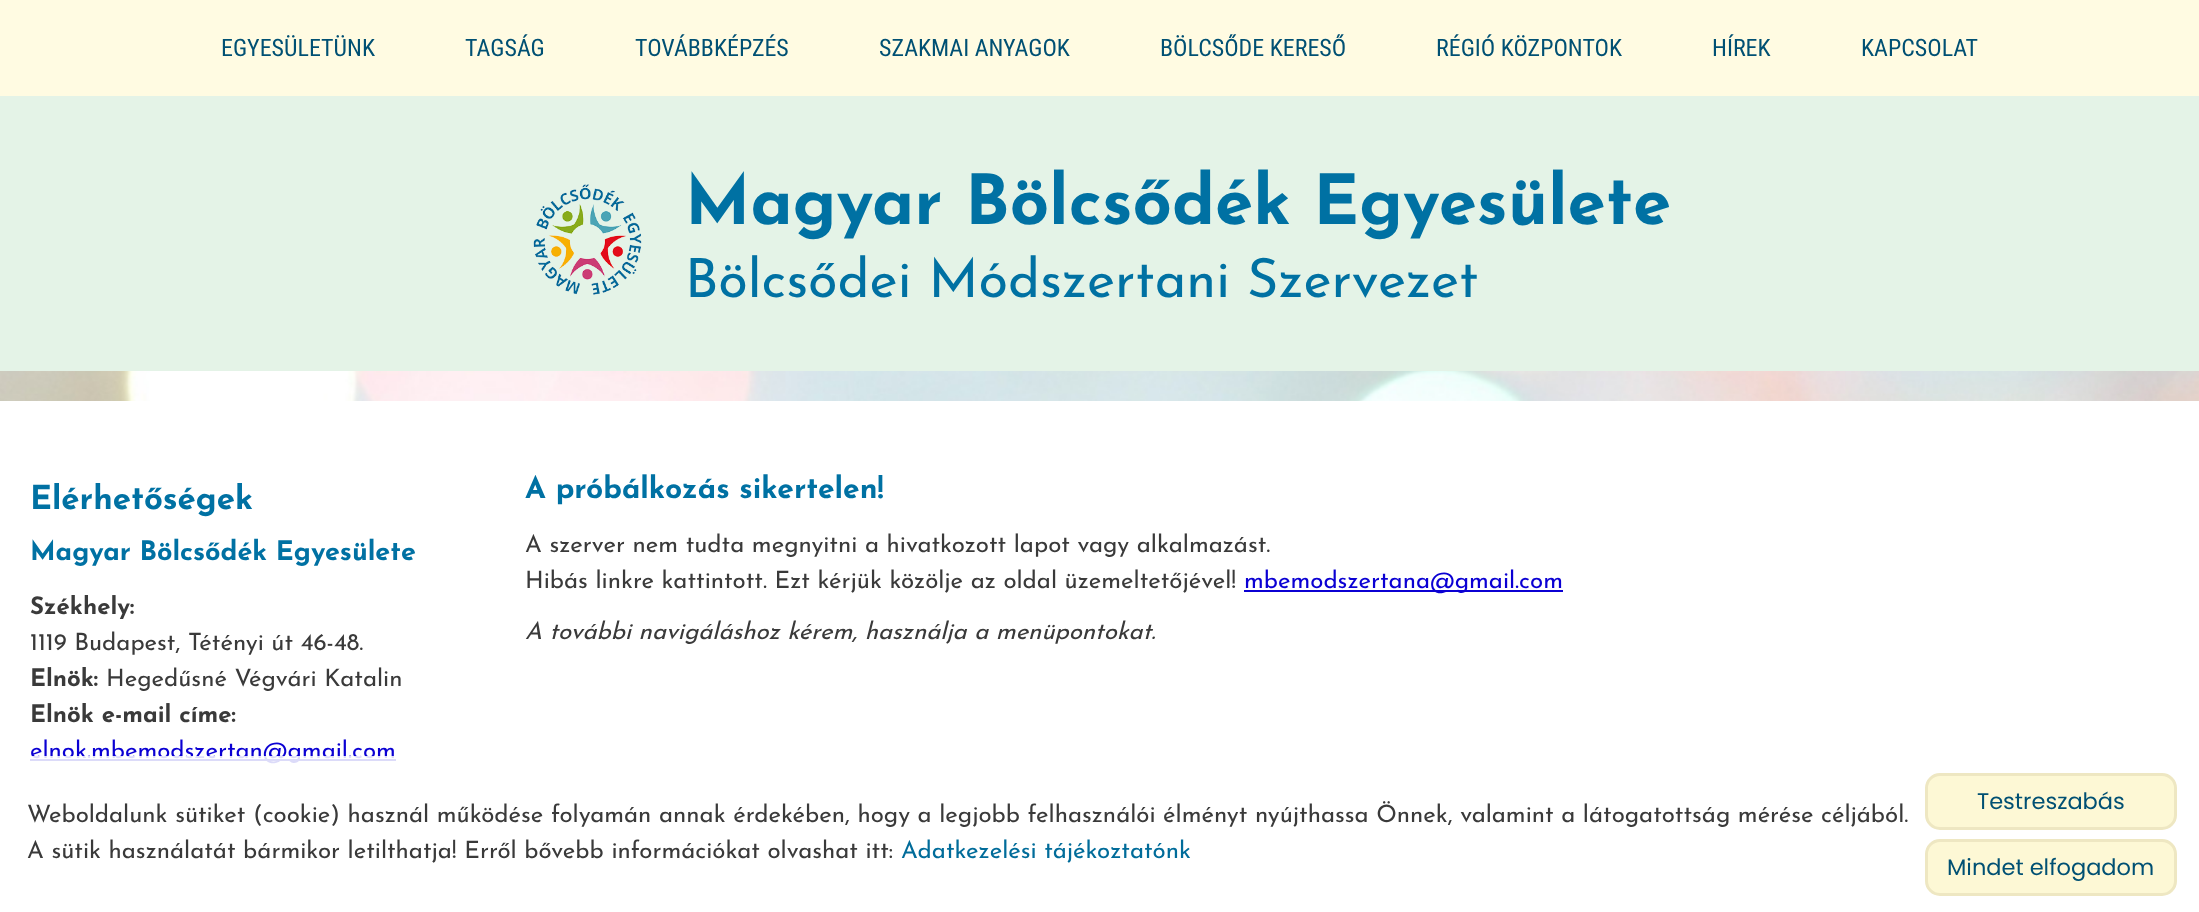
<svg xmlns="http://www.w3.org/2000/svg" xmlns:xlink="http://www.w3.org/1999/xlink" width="2199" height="912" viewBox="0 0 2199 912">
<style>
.cls-1{font:24px Roboto Condensed;fill:#005073}
.cls-2{font:100 69px Josefin Sans;fill:#0071a3}
.cls-3{font:100 54px 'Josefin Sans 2';fill:#0071a3}
.cls-4{font:100 33px Josefin Sans;fill:#0071a3}
.cls-5{font:100 27px Josefin Sans;fill:#0071a3}
.cls-6{font:100 24px Josefin Sans;fill:#3a3a3a}
.cls-7{font:100 24px 'Josefin Sans 2';fill:#3a3a3a}
.cls-8{font:100 24px 'Josefin Sans 2';fill:#0b00d3}
.cls-9{font:100 30px Josefin Sans;fill:#0071a3}
.cls-10{font:italic 100 24px Josefin Sans;fill:#3a3a3a}
.cls-11{font:100 24px 'Josefin Sans 2';fill:#016c9a}
.cls-12{font:22.5px Poppins;fill:#005073}
</style>
<rect width="100%" height="100%" fill="#ffffff"/>
<rect fill="#fffbe2" x="0" y="0" width="2199" height="96"/>
<rect fill="#e4f3e7" x="0" y="96" width="2199" height="275"/>
<image xlink:href="image0.png" x="533" y="184" width="109" height="111"/>
<rect fill="#0b00d3" x="30" y="759" width="366" height="2"/>
<rect fill="#0b00d3" x="1244" y="590" width="319" height="2"/>
<image xlink:href="image1.png" x="0" y="371" width="2199" height="30"/>
<rect fill="#fdf8d5" stroke="#eee7c2" stroke-width="3" x="1926.5" y="774.5" width="249" height="54" rx="13.5"/>
<rect fill="#fdf8d5" stroke="#eee7c2" stroke-width="3" x="1926.5" y="840.5" width="249" height="54" rx="13.5"/>
<text class="cls-1" x="221" y="56">EGYESÜLETÜNK</text>
<text class="cls-1" x="465" y="56">TAGSÁG</text>
<text class="cls-1" x="635" y="56">TOVÁBBKÉPZÉS</text>
<text class="cls-1" x="879" y="56">SZAKMAI ANYAGOK</text>
<text class="cls-1" x="1160" y="56">BÖLCSŐDE KERESŐ</text>
<text class="cls-1" x="1436" y="56">RÉGIÓ KÖZPONTOK</text>
<text class="cls-1" x="1712" y="56">HÍREK</text>
<text class="cls-1" x="1861" y="56">KAPCSOLAT</text>
<text class="cls-2" x="685" y="224">Magyar Bölcsődék Egyesülete</text>
<text class="cls-3" x="685" y="297">Bölcsődei Módszertani Szervezet</text>
<text class="cls-4" x="30" y="509">Elérhetőségek</text>
<text class="cls-5" x="30" y="560">Magyar Bölcsődék Egyesülete</text>
<text class="cls-6" x="30" y="614">Székhely:</text>
<text class="cls-7" x="30" y="650">1119 Budapest, Tétényi út 46-48.</text>
<text class="cls-6" x="30" y="686">Elnök:</text>
<text class="cls-7" x="106" y="686">Hegedűsné Végvári Katalin</text>
<text class="cls-6" x="30" y="722">Elnök e-mail címe:</text>
<text class="cls-8" x="30" y="758">elnok.mbemodszertan@gmail.com</text>
<text class="cls-9" x="525" y="498">A próbálkozás sikertelen!</text>
<text class="cls-7"><tspan x="525" y="552">A szerver nem tudta megnyitni a hivatkozott lapot vagy alkalmazást.</tspan><tspan x="525" y="588">Hibás linkre kattintott. Ezt kérjük közölje az oldal üzemeltetőjével!</tspan></text>
<text class="cls-8" x="1244" y="588">mbemodszertana@gmail.com</text>
<text class="cls-10" x="525" y="639">A további navigáláshoz kérem, használja a menüpontokat.</text>
<rect fill="#ffffff" fill-opacity="0.86" x="30" y="756" width="366" height="8"/>
<text class="cls-7"><tspan x="27" y="822">Weboldalunk sütiket (cookie) használ működése folyamán annak érdekében, hogy a legjobb felhasználói élményt nyújthassa Önnek, valamint a látogatottság mérése céljából.</tspan><tspan x="27" y="858">A sütik használatát bármikor letilthatja! Erről bővebb információkat olvashat itt:</tspan></text>
<text class="cls-11" x="901" y="858">Adatkezelési tájékoztatónk</text>
<text class="cls-12" x="1977" y="809">Testreszabás</text>
<text class="cls-12" x="1947" y="875">Mindet elfogadom</text>
</svg>
